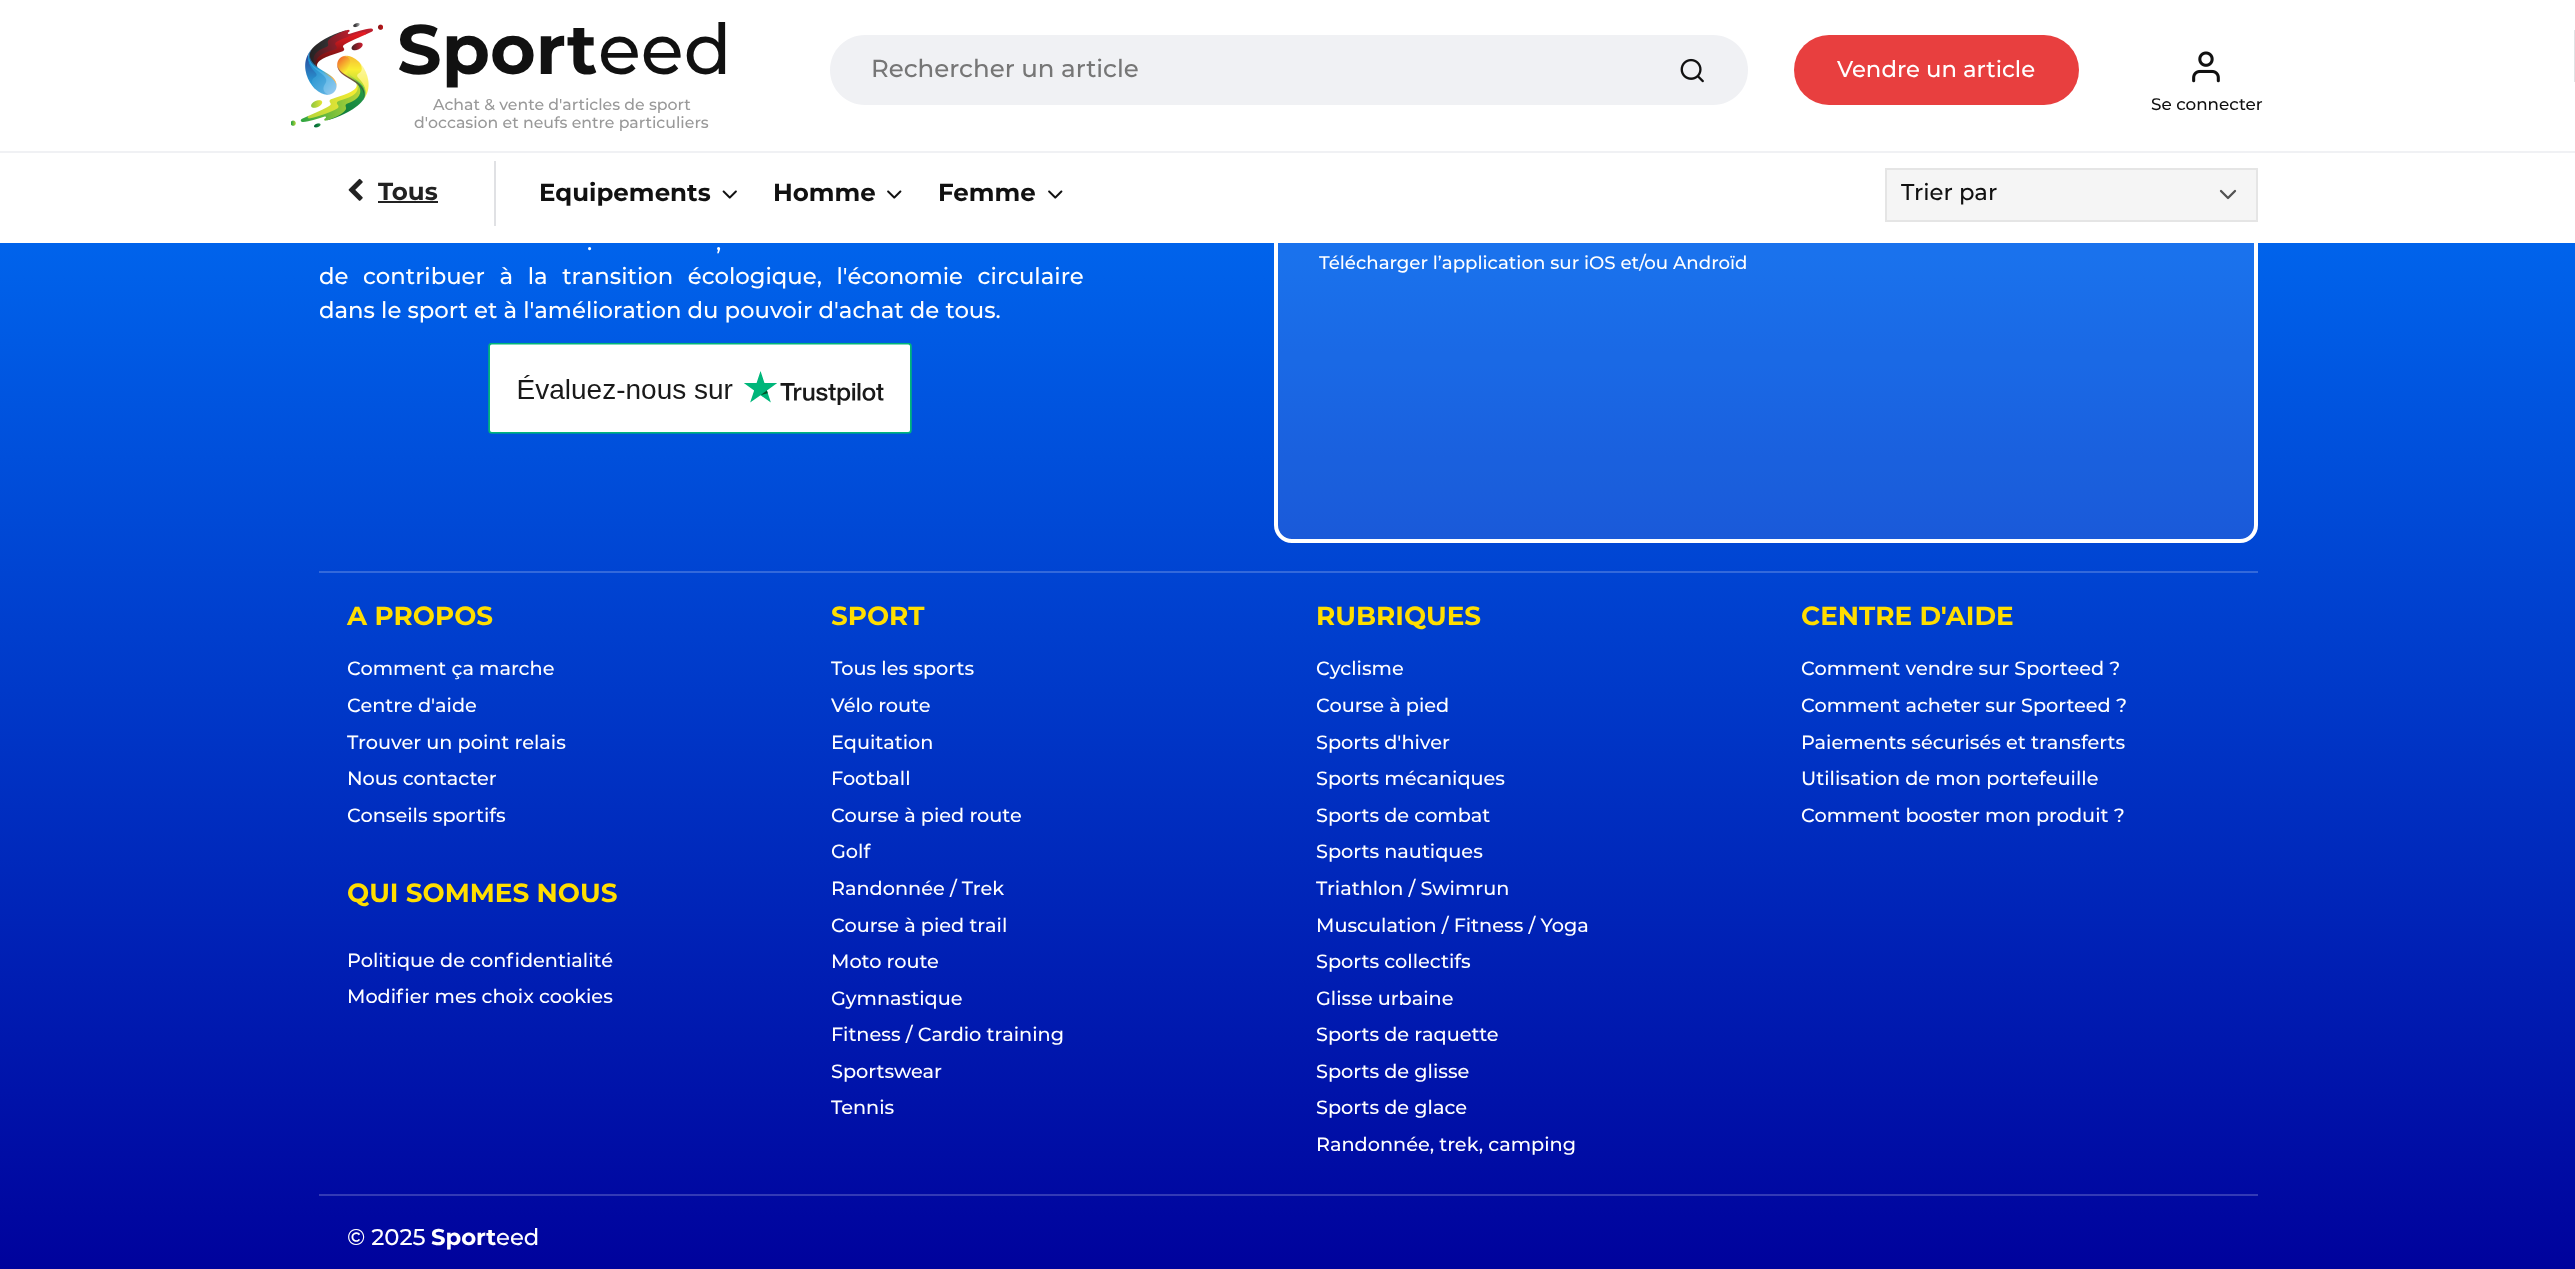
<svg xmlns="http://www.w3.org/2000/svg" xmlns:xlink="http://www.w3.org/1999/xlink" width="2575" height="1269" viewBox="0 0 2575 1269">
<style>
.cls-1{font:bold 70px Montserrat;fill:#111111}
.cls-2{font:500 70px Montserrat;fill:#111111}
.cls-3{font:500 15.75px Montserrat;fill:#999999}
.cls-4{font:500 24.5px Montserrat;fill:#767676}
.cls-5{font:500 22.75px Montserrat;fill:#ffffff}
.cls-6{font:500 16.75px Montserrat;fill:#111111}
.cls-7{font:bold 24.5px Montserrat;fill:#222222}
.cls-8{font:bold 24.5px Montserrat;fill:#111111}
.cls-9{font:500 22.75px Montserrat;fill:#111111}
.cls-10{font:500 18.2px Montserrat;fill:#ffffff}
.cls-11{font:bold 26.25px Montserrat;fill:#ffde00}
.cls-12{font:500 19.25px Montserrat;fill:#ffffff}
.cls-13{font:bold 22.75px Montserrat;fill:#ffffff}
</style>
<defs>
<linearGradient id="g1" gradientUnits="userSpaceOnUse" x1="1288" y1="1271" x2="1288" y2="-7"><stop offset="0" stop-color="#00029c"/><stop offset="1" stop-color="#007bff"/></linearGradient>
</defs>
<rect width="100%" height="100%" fill="#ffffff"/>
<image xlink:href="image0.png" x="291" y="23" width="92" height="105"/>
<rect fill="url(#g1)" x="0" y="243" width="2575" height="1026"/>
<rect fill="#ffffff" fill-opacity="0.1" stroke="#ffffff" stroke-width="4" x="1276" y="37" width="980" height="504" rx="16"/>
<path fill="#f0f1f4" d="M865 35H1638V105H865C845.5 105 830 89.5 830 70C830 50.5 845.5 35 865 35Z"/>
<path fill="#f0f1f4" d="M1636 35H1713C1732.5 35 1748 50.5 1748 70C1748 89.5 1732.5 105 1713 105H1636Z"/>
<image xlink:href="image1.png" x="1680" y="58" width="24" height="25"/>
<rect fill="#e83f3f" x="1794" y="35" width="285" height="70" rx="35"/>
<rect fill="#e1e2e4" x="2574" y="30" width="1" height="52"/>
<image xlink:href="image2.png" x="2192" y="51" width="28" height="32"/>
<rect fill="#f0f1f4" x="0" y="151" width="2575" height="2"/>
<rect fill="#e0e1e4" x="494" y="161" width="2" height="65"/>
<image xlink:href="image3.png" x="348" y="178" width="15" height="23"/>
<rect fill="#222222" x="378" y="201" width="60" height="2"/>
<image xlink:href="image4.png" x="722" y="190" width="15" height="9"/>
<image xlink:href="image5.png" x="887" y="190" width="15" height="9"/>
<image xlink:href="image5.png" x="1048" y="190" width="15" height="9"/>
<rect fill="#f5f5f5" x="1887" y="170" width="369" height="50"/>
<path fill="none" stroke="#525252" stroke-width="2.3" stroke-linecap="round" stroke-linejoin="round" d="M2221 191L2228 198L2235 191"/>
<rect fill="none" stroke="#e5e5e5" stroke-width="2" x="1886" y="169" width="371" height="52"/>
<image xlink:href="image6.png" x="488" y="342" width="424" height="92"/>
<rect fill="#3369db" x="319" y="571" width="1939" height="2"/>
<rect fill="#333ab5" x="319" y="1194" width="1939" height="2"/>
<text class="cls-1" x="397" y="74">Sport</text>
<text class="cls-2" x="598" y="74">eed</text>
<text class="cls-3" x="433" y="110">Achat &amp; vente d'articles de sport</text>
<text class="cls-3" x="414" y="128">d'occasion et neufs entre particuliers</text>
<text class="cls-4" x="871" y="77">Rechercher un article</text>
<text class="cls-5" x="1837" y="77">Vendre un article</text>
<text class="cls-6" x="2151" y="110">Se connecter</text>
<text class="cls-7" x="378" y="200">Tous</text>
<text class="cls-8" x="539" y="201">Equipements</text>
<text class="cls-8" x="773" y="201">Homme</text>
<text class="cls-8" x="938" y="201">Femme</text>
<text class="cls-9" x="1901" y="200">Trier par</text>
<text class="cls-5" x="587" y="250" word-spacing="2">.</text>
<text class="cls-5" x="716" y="250" word-spacing="2">,</text>
<text class="cls-5"><tspan x="319" y="284" word-spacing="8.5">de contribuer à la transition écologique, l'économie circulaire</tspan><tspan x="319" y="318">dans le sport et à l'amélioration du pouvoir d'achat de tous.</tspan></text>
<text class="cls-10" x="1319" y="269">Télécharger l’application sur iOS et/ou Androïd</text>
<text class="cls-11" x="347" y="625">A PROPOS</text>
<text class="cls-12"><tspan x="347" y="675">Comment ça marche</tspan><tspan x="347" y="712">Centre d'aide</tspan><tspan x="347" y="749">Trouver un point relais</tspan><tspan x="347" y="785">Nous contacter</tspan><tspan x="347" y="822">Conseils sportifs</tspan></text>
<text class="cls-11" x="347" y="902">QUI SOMMES NOUS</text>
<text class="cls-12"><tspan x="347" y="967">Politique de confidentialité</tspan><tspan x="347" y="1003">Modifier mes choix cookies</tspan></text>
<text class="cls-11" x="831" y="625">SPORT</text>
<text class="cls-12"><tspan x="831" y="675">Tous les sports</tspan><tspan x="831" y="712">Vélo route</tspan><tspan x="831" y="749">Equitation</tspan><tspan x="831" y="785">Football</tspan><tspan x="831" y="822">Course à pied route</tspan><tspan x="831" y="858">Golf</tspan><tspan x="831" y="895">Randonnée / Trek</tspan><tspan x="831" y="932">Course à pied trail</tspan><tspan x="831" y="968">Moto route</tspan><tspan x="831" y="1005">Gymnastique</tspan><tspan x="831" y="1041">Fitness / Cardio training</tspan><tspan x="831" y="1078">Sportswear</tspan><tspan x="831" y="1114">Tennis</tspan></text>
<text class="cls-11" x="1316" y="625">RUBRIQUES</text>
<text class="cls-12"><tspan x="1316" y="675">Cyclisme</tspan><tspan x="1316" y="712">Course à pied</tspan><tspan x="1316" y="749">Sports d'hiver</tspan><tspan x="1316" y="785">Sports mécaniques</tspan><tspan x="1316" y="822">Sports de combat</tspan><tspan x="1316" y="858">Sports nautiques</tspan><tspan x="1316" y="895">Triathlon / Swimrun</tspan><tspan x="1316" y="932">Musculation / Fitness / Yoga</tspan><tspan x="1316" y="968">Sports collectifs</tspan><tspan x="1316" y="1005">Glisse urbaine</tspan><tspan x="1316" y="1041">Sports de raquette</tspan><tspan x="1316" y="1078">Sports de glisse</tspan><tspan x="1316" y="1114">Sports de glace</tspan><tspan x="1316" y="1151">Randonnée, trek, camping</tspan></text>
<text class="cls-11" x="1801" y="625">CENTRE D'AIDE</text>
<text class="cls-12"><tspan x="1801" y="675">Comment vendre sur Sporteed ?</tspan><tspan x="1801" y="712">Comment acheter sur Sporteed ?</tspan><tspan x="1801" y="749">Paiements sécurisés et transferts</tspan><tspan x="1801" y="785">Utilisation de mon portefeuille</tspan><tspan x="1801" y="822">Comment booster mon produit ?</tspan></text>
<text class="cls-5" x="347" y="1245">© 2025</text>
<text class="cls-13" x="431" y="1245">Sport</text>
<text class="cls-5" x="496" y="1245">eed</text>
</svg>
